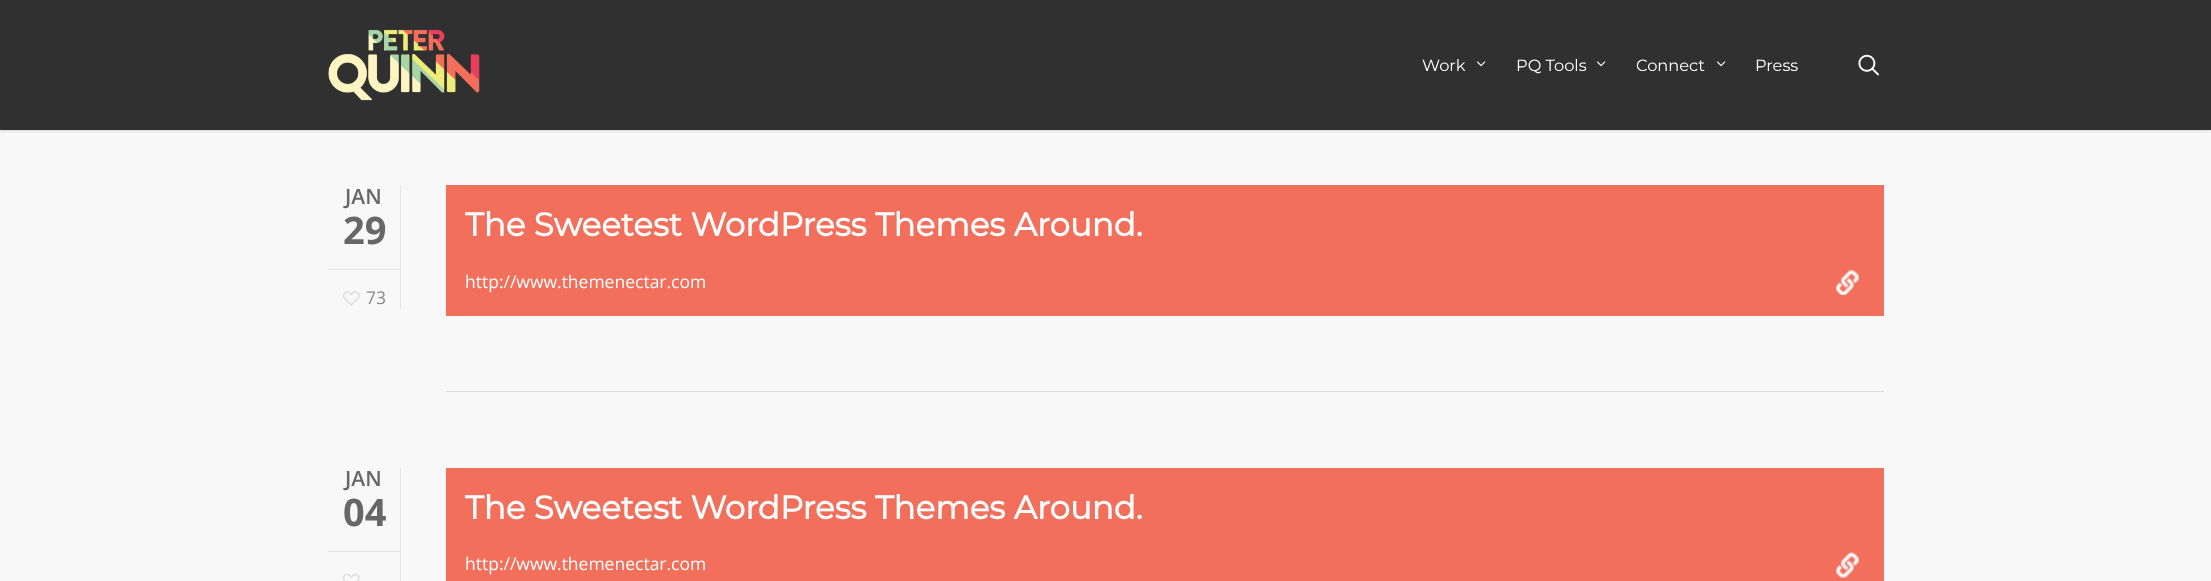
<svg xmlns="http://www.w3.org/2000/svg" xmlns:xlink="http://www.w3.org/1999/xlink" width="2211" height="581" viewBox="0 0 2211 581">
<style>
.cls-1{font:100 16.25px Montserrat;fill:#ffffff}
.cls-2{font:600 21px Open Sans;fill:#676767}
.cls-3{font:bold 38px Open Sans;fill:#676767}
.cls-4{font:17.5px Open Sans;fill:#888888}
.cls-5{font:bold 32.5px Montserrat;fill:#ffffff}
.cls-6{font:17.5px Open Sans;fill:#ffffff}
</style>
<defs>
<clipPath id="clip1"><rect x="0" y="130" width="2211" height="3"/></clipPath>
</defs>
<rect width="100%" height="100%" fill="#303030"/>
<rect fill="#f8f8f8" x="0" y="130" width="2211" height="451"/>
<g clip-path="url(#clip1)">
<rect fill="#000000" fill-opacity="0.22" filter="blur(2px)" x="0" y="0" width="2211" height="130"/>
</g>
<image xlink:href="image0.png" x="328" y="29" width="152" height="72"/>
<image xlink:href="image1.png" x="1477" y="61" width="9" height="6"/>
<image xlink:href="image1.png" x="1597" y="61" width="9" height="6"/>
<image xlink:href="image1.png" x="1717" y="61" width="9" height="6"/>
<image xlink:href="image2.png" x="1858" y="54" width="21" height="22"/>
<rect fill="#e6e6e6" x="400" y="185" width="1" height="124"/>
<rect fill="#e6e6e6" x="328" y="269" width="72" height="1"/>
<image xlink:href="image3.png" x="342" y="291" width="18" height="15"/>
<rect fill="#dddddd" x="446" y="391" width="1438" height="1"/>
<rect fill="#f26f5b" x="446" y="185" width="1438" height="131"/>
<image xlink:href="image4.png" x="1836" y="270" width="23" height="25"/>
<rect fill="#e6e6e6" x="400" y="468" width="1" height="113"/>
<rect fill="#e6e6e6" x="328" y="551" width="72" height="1"/>
<image xlink:href="image5.png" x="342" y="573" width="18" height="8"/>
<rect fill="#f26f5b" x="446" y="468" width="1438" height="113"/>
<image xlink:href="image6.png" x="1836" y="552" width="23" height="26"/>
<text class="cls-1" x="1422" y="71">Work</text>
<text class="cls-1" x="1516" y="71">PQ Tools</text>
<text class="cls-1" x="1636" y="71">Connect</text>
<text class="cls-1" x="1755" y="71">Press</text>
<text class="cls-2" x="345" y="204">JAN</text>
<text class="cls-3" x="343" y="244">29</text>
<text class="cls-4" x="366" y="304">73</text>
<text class="cls-5" x="465" y="236">The Sweetest WordPress Themes Around.</text>
<text class="cls-6" x="465" y="288">http://www.themenectar.com</text>
<text class="cls-2" x="345" y="486">JAN</text>
<text class="cls-3" x="343" y="526">04</text>
<text class="cls-5" x="465" y="519">The Sweetest WordPress Themes Around.</text>
<text class="cls-6" x="465" y="570">http://www.themenectar.com</text>
</svg>
